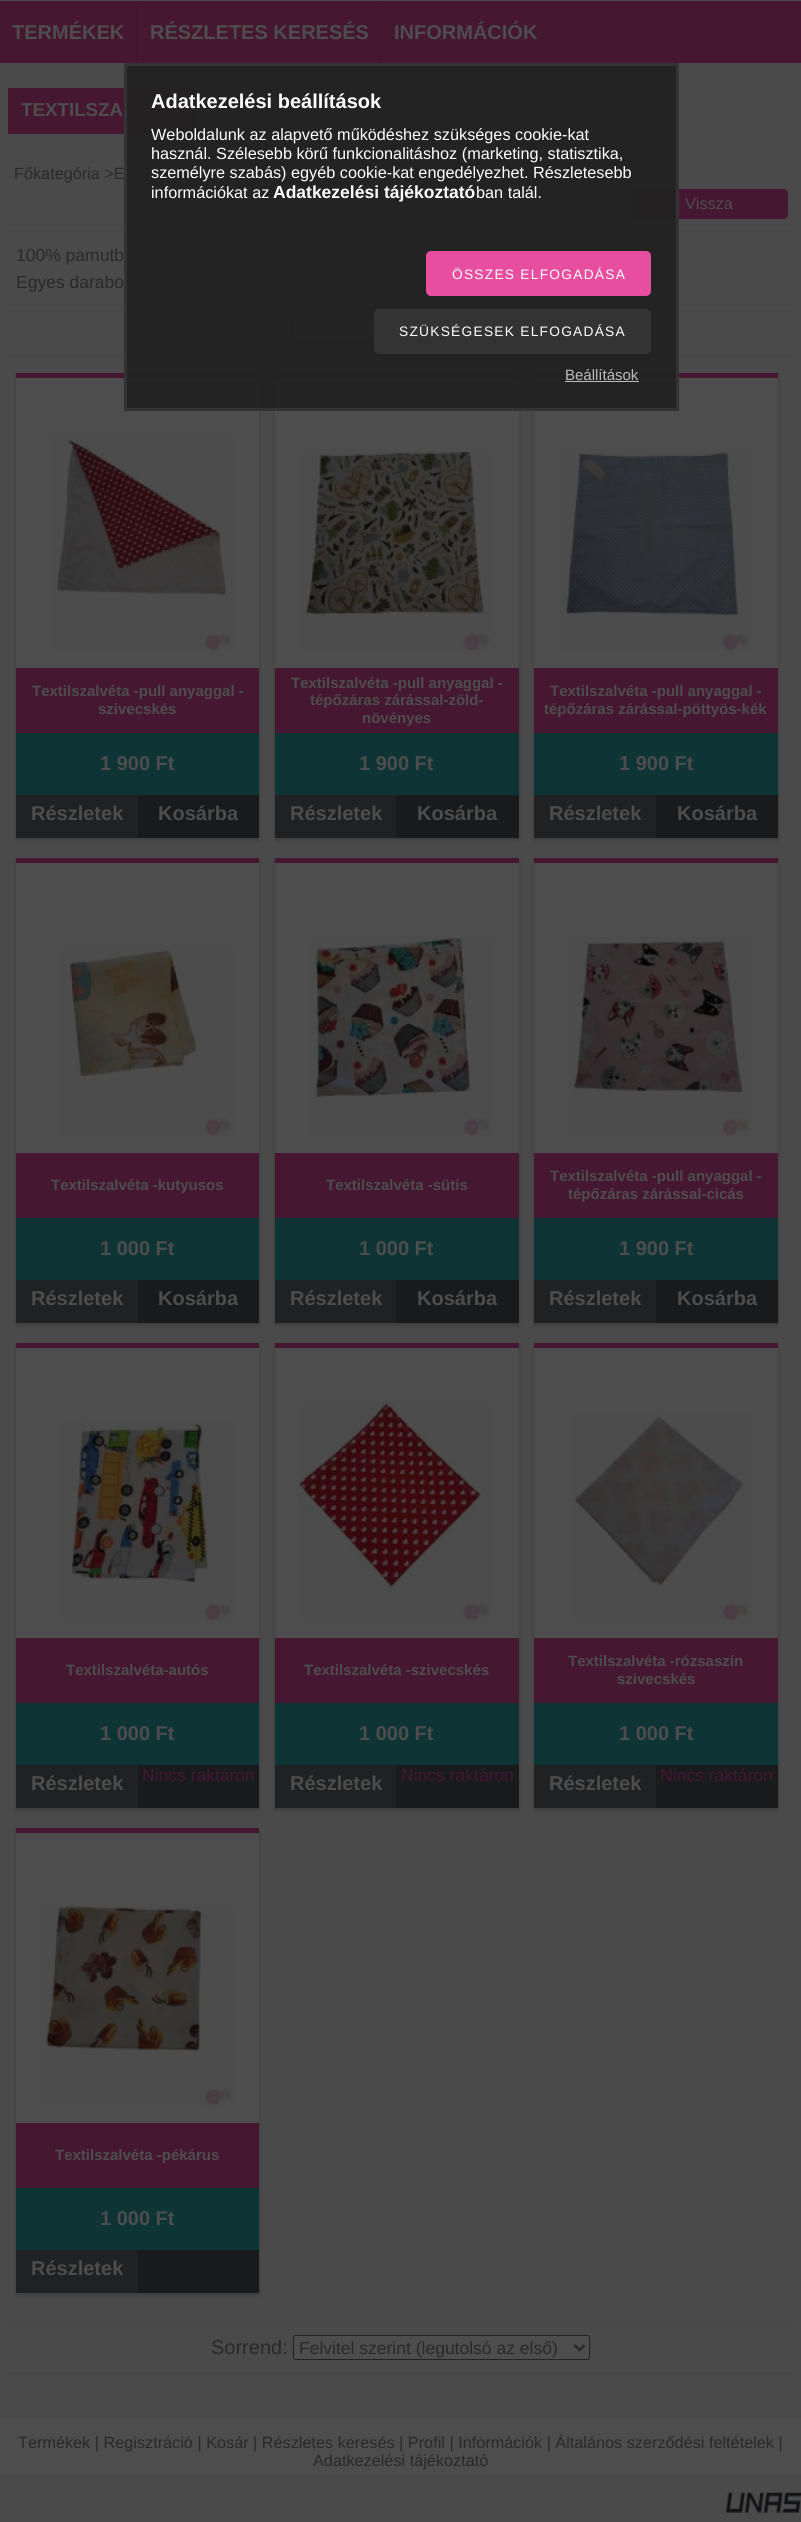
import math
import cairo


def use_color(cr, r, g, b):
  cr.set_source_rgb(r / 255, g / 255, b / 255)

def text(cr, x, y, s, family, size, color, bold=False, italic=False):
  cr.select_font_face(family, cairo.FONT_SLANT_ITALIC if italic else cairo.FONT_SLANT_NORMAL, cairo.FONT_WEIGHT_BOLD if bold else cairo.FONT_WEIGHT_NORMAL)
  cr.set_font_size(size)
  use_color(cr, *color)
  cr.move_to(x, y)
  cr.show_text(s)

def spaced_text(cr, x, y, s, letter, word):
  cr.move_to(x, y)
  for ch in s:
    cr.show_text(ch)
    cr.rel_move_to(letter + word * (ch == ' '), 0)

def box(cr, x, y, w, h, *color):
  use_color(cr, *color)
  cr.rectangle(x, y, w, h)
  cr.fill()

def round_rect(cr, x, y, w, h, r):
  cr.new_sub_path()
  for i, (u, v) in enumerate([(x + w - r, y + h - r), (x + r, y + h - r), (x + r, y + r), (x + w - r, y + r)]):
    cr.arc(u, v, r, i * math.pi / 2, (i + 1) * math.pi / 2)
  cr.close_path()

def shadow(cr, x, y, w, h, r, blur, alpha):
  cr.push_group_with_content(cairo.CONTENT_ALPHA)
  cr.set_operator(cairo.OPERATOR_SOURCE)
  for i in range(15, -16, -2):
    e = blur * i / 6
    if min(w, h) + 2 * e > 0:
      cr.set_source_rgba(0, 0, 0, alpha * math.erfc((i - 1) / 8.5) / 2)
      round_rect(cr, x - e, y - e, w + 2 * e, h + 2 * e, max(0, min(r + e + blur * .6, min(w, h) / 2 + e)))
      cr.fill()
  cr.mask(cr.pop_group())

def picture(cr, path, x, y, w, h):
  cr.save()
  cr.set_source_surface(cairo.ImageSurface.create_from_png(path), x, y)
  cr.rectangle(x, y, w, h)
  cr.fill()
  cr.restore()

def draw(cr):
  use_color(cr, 74, 74, 74)
  cr.paint()
  box(cr, 0, 1, 801, 62, 69, 23, 48)
  cr.set_source_rgba(0, 0, 0, 0.07)
  cr.rectangle(136, 1, 1, 62)
  cr.fill()
  cr.rectangle(380, 1, 1, 62)
  cr.fill()
  cr.rectangle(549, 1, 1, 62)
  cr.fill()
  box(cr, 8, 88, 188, 46, 69, 23, 48)
  round_rect(cr, 631, 189, 157, 30, 5)
  cr.fill()
  box(cr, 8, 231, 786, 1, 71, 70, 70)
  box(cr, 8, 304, 786, 1, 71, 70, 70)
  use_color(cr, 77, 77, 77)
  round_rect(cr, 293.5, 318.5, 296, 24, 2)
  cr.fill_preserve()
  use_color(cr, 35, 35, 35)
  cr.set_line_width(1)
  cr.stroke()
  box(cr, 8, 355, 786, 1, 71, 70, 70)
  use_color(cr, 0, 0, 0)
  shadow(cr, 16, 375, 243, 465, 0, 2, 0.2)
  box(cr, 16, 373, 243, 5, 69, 23, 48)
  box(cr, 16, 378, 243, 290, 77, 77, 77)
  picture(cr, "img_01.png", 51, 433, 184, 218)
  box(cr, 16, 668, 243, 65, 69, 23, 48)
  box(cr, 16, 733, 243, 62, 14, 52, 54)
  box(cr, 16, 795, 122, 43, 32, 33, 34)
  box(cr, 138, 795, 121, 43, 24, 26, 28)
  use_color(cr, 0, 0, 0)
  shadow(cr, 275, 375, 244, 465, 0, 2, 0.2)
  box(cr, 275, 373, 244, 5, 69, 23, 48)
  box(cr, 275, 378, 244, 290, 77, 77, 77)
  picture(cr, "img_02.png", 299, 451, 194, 200)
  box(cr, 275, 668, 244, 65, 69, 23, 48)
  box(cr, 275, 733, 244, 62, 14, 52, 54)
  box(cr, 275, 795, 121, 43, 32, 33, 34)
  box(cr, 396, 795, 123, 43, 24, 26, 28)
  use_color(cr, 0, 0, 0)
  shadow(cr, 534, 375, 244, 465, 0, 2, 0.2)
  box(cr, 534, 373, 244, 5, 69, 23, 48)
  box(cr, 534, 378, 244, 290, 77, 77, 77)
  picture(cr, "img_03.png", 559, 452, 193, 199)
  box(cr, 534, 668, 244, 65, 69, 23, 48)
  box(cr, 534, 733, 244, 62, 14, 52, 54)
  box(cr, 534, 795, 122, 43, 32, 33, 34)
  box(cr, 656, 795, 122, 43, 24, 26, 28)
  use_color(cr, 0, 0, 0)
  shadow(cr, 16, 860, 243, 465, 0, 2, 0.2)
  box(cr, 16, 858, 243, 5, 69, 23, 48)
  box(cr, 16, 863, 243, 290, 77, 77, 77)
  picture(cr, "img_04.png", 59, 947, 176, 189)
  box(cr, 16, 1153, 243, 65, 69, 23, 48)
  box(cr, 16, 1218, 243, 62, 14, 52, 54)
  box(cr, 16, 1280, 122, 43, 32, 33, 34)
  box(cr, 138, 1280, 121, 43, 24, 26, 28)
  use_color(cr, 0, 0, 0)
  shadow(cr, 275, 860, 244, 465, 0, 2, 0.2)
  box(cr, 275, 858, 244, 5, 69, 23, 48)
  box(cr, 275, 863, 244, 290, 77, 77, 77)
  picture(cr, "img_05.png", 309, 937, 184, 199)
  box(cr, 275, 1153, 244, 65, 69, 23, 48)
  box(cr, 275, 1218, 244, 62, 14, 52, 54)
  box(cr, 275, 1280, 121, 43, 32, 33, 34)
  box(cr, 396, 1280, 123, 43, 24, 26, 28)
  use_color(cr, 0, 0, 0)
  shadow(cr, 534, 860, 244, 465, 0, 2, 0.2)
  box(cr, 534, 858, 244, 5, 69, 23, 48)
  box(cr, 534, 863, 244, 290, 77, 77, 77)
  picture(cr, "img_06.png", 569, 937, 183, 199)
  box(cr, 534, 1153, 244, 65, 69, 23, 48)
  box(cr, 534, 1218, 244, 62, 14, 52, 54)
  box(cr, 534, 1280, 122, 43, 32, 33, 34)
  box(cr, 656, 1280, 122, 43, 24, 26, 28)
  use_color(cr, 0, 0, 0)
  shadow(cr, 16, 1345, 243, 465, 0, 2, 0.2)
  box(cr, 16, 1343, 243, 5, 69, 23, 48)
  box(cr, 16, 1348, 243, 290, 77, 77, 77)
  picture(cr, "img_07.png", 60, 1421, 175, 200)
  box(cr, 16, 1638, 243, 65, 69, 23, 48)
  box(cr, 16, 1703, 243, 62, 14, 52, 54)
  box(cr, 16, 1765, 122, 43, 32, 33, 34)
  box(cr, 138, 1765, 121, 43, 24, 26, 28)
  use_color(cr, 0, 0, 0)
  shadow(cr, 275, 1345, 244, 465, 0, 2, 0.2)
  box(cr, 275, 1343, 244, 5, 69, 23, 48)
  box(cr, 275, 1348, 244, 290, 77, 77, 77)
  picture(cr, "img_08.png", 298, 1402, 195, 219)
  box(cr, 275, 1638, 244, 65, 69, 23, 48)
  box(cr, 275, 1703, 244, 62, 14, 52, 54)
  box(cr, 275, 1765, 121, 43, 32, 33, 34)
  box(cr, 396, 1765, 123, 43, 24, 26, 28)
  use_color(cr, 0, 0, 0)
  shadow(cr, 534, 1345, 244, 465, 0, 2, 0.2)
  box(cr, 534, 1343, 244, 5, 69, 23, 48)
  box(cr, 534, 1348, 244, 290, 77, 77, 77)
  picture(cr, "img_09.png", 571, 1413, 181, 208)
  box(cr, 534, 1638, 244, 65, 69, 23, 48)
  box(cr, 534, 1703, 244, 62, 14, 52, 54)
  box(cr, 534, 1765, 122, 43, 32, 33, 34)
  box(cr, 656, 1765, 122, 43, 24, 26, 28)
  use_color(cr, 0, 0, 0)
  shadow(cr, 16, 1830, 243, 465, 0, 2, 0.2)
  box(cr, 16, 1828, 243, 5, 69, 23, 48)
  box(cr, 16, 1833, 243, 290, 77, 77, 77)
  picture(cr, "img_10.png", 40, 1905, 195, 201)
  box(cr, 16, 2123, 243, 65, 69, 23, 48)
  box(cr, 16, 2188, 243, 62, 14, 52, 54)
  box(cr, 16, 2250, 122, 43, 32, 33, 34)
  box(cr, 138, 2250, 121, 43, 24, 26, 28)
  box(cr, 8, 2321, 786, 1, 71, 70, 70)
  use_color(cr, 77, 77, 77)
  round_rect(cr, 293.5, 2335.5, 296, 24, 2)
  cr.fill_preserve()
  use_color(cr, 35, 35, 35)
  cr.stroke()
  cr.new_path()
  cr.move_to(574.5, 2345)
  cr.line_to(579.5, 2350)
  cr.line_to(584.5, 2345)
  use_color(cr, 42, 41, 41)
  cr.set_line_width(2.5)
  cr.stroke()
  box(cr, 8, 2373, 786, 1, 71, 70, 70)
  box(cr, 0, 2418, 801, 56, 77, 77, 77)
  picture(cr, "img_11.png", 726, 2492, 75, 21)
  text(cr, 12, 39, "TERMÉKEK", "Liberation Sans", 20, (77, 77, 77), bold=True)
  text(cr, 150, 39, "RÉSZLETES KERESÉS", "Liberation Sans", 20, (77, 77, 77), bold=True)
  text(cr, 394, 39, "INFORMÁCIÓK", "Liberation Sans", 20, (77, 77, 77), bold=True)
  text(cr, 21, 116, "TEXTILSZA", "Liberation Sans", 18.75, (77, 77, 77), bold=True)
  text(cr, 14, 179, "Főkategória >E", "Liberation Sans", 16.25, (42, 41, 41))
  text(cr, 685, 209, "Vissza", "Liberation Sans", 16.25, (77, 77, 77))
  text(cr, 16, 261, "100% pamutb", "Liberation Sans", 17.5, (42, 41, 41))
  text(cr, 16, 288, "Egyes darabo", "Liberation Sans", 17.5, (42, 41, 41))
  text(cr, 32, 696, "Textilszalvéta -pull anyaggal -", "Liberation Sans", 15, (77, 77, 77), bold=True)
  text(cr, 98, 714, "szivecskés", "Liberation Sans", 15, (77, 77, 77), bold=True)
  text(cr, 100, 770, "1 900 Ft", "Liberation Sans", 20, (77, 77, 77), bold=True)
  text(cr, 31, 820, "Részletek", "Liberation Sans", 20, (77, 77, 77), bold=True)
  text(cr, 158, 820, "Kosárba", "Liberation Sans", 20, (77, 77, 77), bold=True)
  text(cr, 291, 688, "Textilszalvéta -pull anyaggal -", "Liberation Sans", 15, (77, 77, 77), bold=True)
  text(cr, 310, 705, "tépőzáras zárással-zöld-", "Liberation Sans", 15, (77, 77, 77), bold=True)
  text(cr, 362, 723, "növényes", "Liberation Sans", 15, (77, 77, 77), bold=True)
  text(cr, 359, 770, "1 900 Ft", "Liberation Sans", 20, (77, 77, 77), bold=True)
  text(cr, 290, 820, "Részletek", "Liberation Sans", 20, (77, 77, 77), bold=True)
  text(cr, 417, 820, "Kosárba", "Liberation Sans", 20, (77, 77, 77), bold=True)
  text(cr, 550, 696, "Textilszalvéta -pull anyaggal -", "Liberation Sans", 15, (77, 77, 77), bold=True)
  text(cr, 544, 714, "tépőzáras zárással-pöttyös-kék", "Liberation Sans", 15, (77, 77, 77), bold=True)
  text(cr, 619, 770, "1 900 Ft", "Liberation Sans", 20, (77, 77, 77), bold=True)
  text(cr, 549, 820, "Részletek", "Liberation Sans", 20, (77, 77, 77), bold=True)
  text(cr, 677, 820, "Kosárba", "Liberation Sans", 20, (77, 77, 77), bold=True)
  text(cr, 51, 1190, "Textilszalvéta -kutyusos", "Liberation Sans", 15, (77, 77, 77), bold=True)
  text(cr, 100, 1255, "1 000 Ft", "Liberation Sans", 20, (77, 77, 77), bold=True)
  text(cr, 31, 1305, "Részletek", "Liberation Sans", 20, (77, 77, 77), bold=True)
  text(cr, 158, 1305, "Kosárba", "Liberation Sans", 20, (77, 77, 77), bold=True)
  text(cr, 326, 1190, "Textilszalvéta -sütis", "Liberation Sans", 15, (77, 77, 77), bold=True)
  text(cr, 359, 1255, "1 000 Ft", "Liberation Sans", 20, (77, 77, 77), bold=True)
  text(cr, 290, 1305, "Részletek", "Liberation Sans", 20, (77, 77, 77), bold=True)
  text(cr, 417, 1305, "Kosárba", "Liberation Sans", 20, (77, 77, 77), bold=True)
  text(cr, 550, 1181, "Textilszalvéta -pull anyaggal -", "Liberation Sans", 15, (77, 77, 77), bold=True)
  text(cr, 568, 1199, "tépőzáras zárással-cicás", "Liberation Sans", 15, (77, 77, 77), bold=True)
  text(cr, 619, 1255, "1 900 Ft", "Liberation Sans", 20, (77, 77, 77), bold=True)
  text(cr, 549, 1305, "Részletek", "Liberation Sans", 20, (77, 77, 77), bold=True)
  text(cr, 677, 1305, "Kosárba", "Liberation Sans", 20, (77, 77, 77), bold=True)
  text(cr, 66, 1675, "Textilszalvéta-autós", "Liberation Sans", 15, (77, 77, 77), bold=True)
  text(cr, 100, 1740, "1 000 Ft", "Liberation Sans", 20, (77, 77, 77), bold=True)
  text(cr, 31, 1790, "Részletek", "Liberation Sans", 20, (77, 77, 77), bold=True)
  text(cr, 142, 1781, "Nincs raktáron", "Liberation Sans", 17.5, (69, 23, 48))
  text(cr, 304, 1675, "Textilszalvéta -szivecskés", "Liberation Sans", 15, (77, 77, 77), bold=True)
  text(cr, 359, 1740, "1 000 Ft", "Liberation Sans", 20, (77, 77, 77), bold=True)
  text(cr, 290, 1790, "Részletek", "Liberation Sans", 20, (77, 77, 77), bold=True)
  text(cr, 401, 1781, "Nincs raktáron", "Liberation Sans", 17.5, (69, 23, 48))
  text(cr, 568, 1666, "Textilszalvéta -rózsaszín", "Liberation Sans", 15, (77, 77, 77), bold=True)
  text(cr, 617, 1684, "szivecskés", "Liberation Sans", 15, (77, 77, 77), bold=True)
  text(cr, 619, 1740, "1 000 Ft", "Liberation Sans", 20, (77, 77, 77), bold=True)
  text(cr, 549, 1790, "Részletek", "Liberation Sans", 20, (77, 77, 77), bold=True)
  text(cr, 660, 1781, "Nincs raktáron", "Liberation Sans", 17.5, (69, 23, 48))
  text(cr, 55, 2160, "Textilszalvéta -pékárus", "Liberation Sans", 15, (77, 77, 77), bold=True)
  text(cr, 100, 2225, "1 000 Ft", "Liberation Sans", 20, (77, 77, 77), bold=True)
  text(cr, 31, 2275, "Részletek", "Liberation Sans", 20, (77, 77, 77), bold=True)
  text(cr, 211, 2354, "Sorrend:", "Liberation Sans", 20, (42, 41, 41))
  text(cr, 299, 2354, "Felvitel szerint (legutolsó az első)", "Liberation Sans", 17.5, (42, 41, 41))
  text(cr, 18, 2448, "Termékek | Regisztráció | Kosár | Részletes keresés | Profil | Információk | Általános szerződési feltételek |", "Liberation Sans", 16.25, (42, 41, 41))
  text(cr, 313, 2466, "Adatkezelési tájékoztató", "Liberation Sans", 16.25, (42, 41, 41))
  cr.set_source_rgba(0.133, 0.133, 0.133, 0.95)
  cr.rectangle(125.5, 64.5, 552, 345)
  cr.fill_preserve()
  use_color(cr, 51, 51, 51)
  cr.set_line_width(3)
  cr.stroke()
  text(cr, 151, 108, "Adatkezelési beállítások", "Liberation Sans", 20, (255, 255, 255), bold=True)
  text(cr, 151, 140, "Weboldalunk az alapvető működéshez szükséges cookie-kat", "Liberation Sans", 16.25, (255, 255, 255))
  text(cr, 151, 159, "használ. Szélesebb körű funkcionalitáshoz (marketing, statisztika,", "Liberation Sans", 16.25, (255, 255, 255))
  text(cr, 151, 178, "személyre szabás) egyéb cookie-kat engedélyezhet. Részletesebb", "Liberation Sans", 16.25, (255, 255, 255))
  text(cr, 151, 198, "információkat az", "Liberation Sans", 16.25, (255, 255, 255))
  text(cr, 273, 198, "Adatkezelési tájékoztató", "Liberation Sans", 17.5, (255, 255, 255), bold=True)
  text(cr, 476, 198, "ban talál.", "Liberation Sans", 16.25, (255, 255, 255))
  use_color(cr, 231, 78, 160)
  round_rect(cr, 426, 251, 225, 45, 5)
  cr.fill()
  cr.set_font_size(13.75)
  use_color(cr, 255, 255, 255)
  spaced_text(cr, 452, 279, "ÖSSZES ELFOGADÁSA", 1.25, 0)
  use_color(cr, 51, 51, 51)
  round_rect(cr, 374, 309, 277, 45, 5)
  cr.fill()
  use_color(cr, 255, 255, 255)
  spaced_text(cr, 399, 336, "SZÜKSÉGESEK ELFOGADÁSA", 1.25, 0)
  text(cr, 565, 380, "Beállítások", "Liberation Sans", 15, (189, 189, 189))
  box(cr, 565, 381, 74, 1, 189, 189, 189)


surface = cairo.ImageSurface(cairo.FORMAT_RGB24, 801, 2522)
cr = cairo.Context(surface)
options = cairo.FontOptions()
options.set_hint_metrics(cairo.HINT_METRICS_OFF)
options.set_hint_style(cairo.HINT_STYLE_NONE)
cr.set_font_options(options)
cr.set_miter_limit(4)
draw(cr)
surface.write_to_png("out.png")
